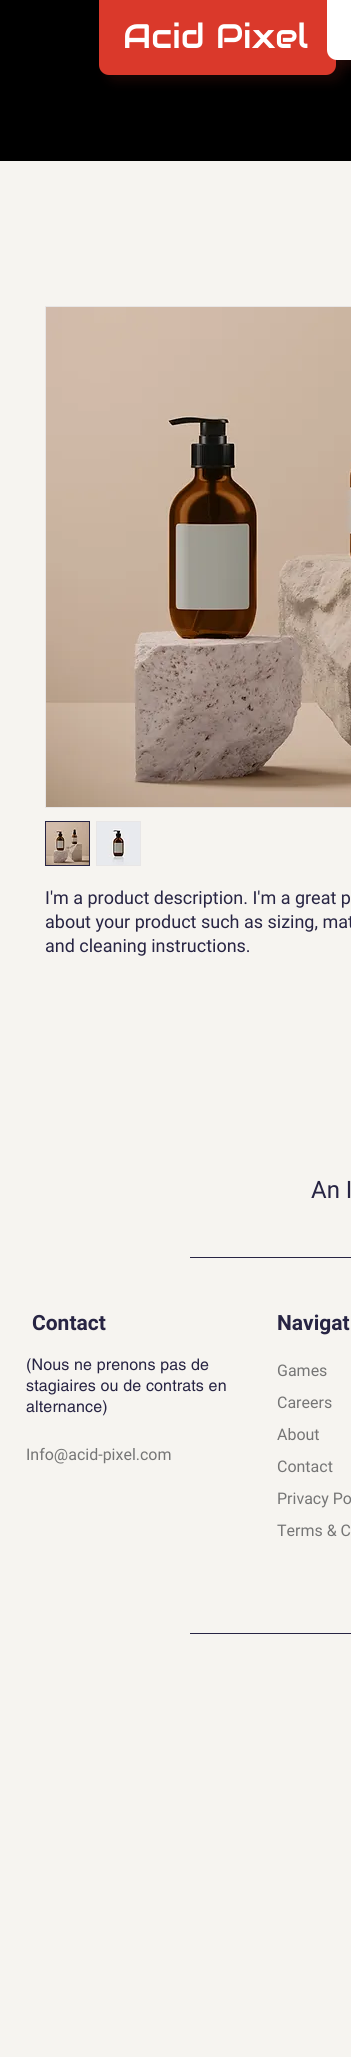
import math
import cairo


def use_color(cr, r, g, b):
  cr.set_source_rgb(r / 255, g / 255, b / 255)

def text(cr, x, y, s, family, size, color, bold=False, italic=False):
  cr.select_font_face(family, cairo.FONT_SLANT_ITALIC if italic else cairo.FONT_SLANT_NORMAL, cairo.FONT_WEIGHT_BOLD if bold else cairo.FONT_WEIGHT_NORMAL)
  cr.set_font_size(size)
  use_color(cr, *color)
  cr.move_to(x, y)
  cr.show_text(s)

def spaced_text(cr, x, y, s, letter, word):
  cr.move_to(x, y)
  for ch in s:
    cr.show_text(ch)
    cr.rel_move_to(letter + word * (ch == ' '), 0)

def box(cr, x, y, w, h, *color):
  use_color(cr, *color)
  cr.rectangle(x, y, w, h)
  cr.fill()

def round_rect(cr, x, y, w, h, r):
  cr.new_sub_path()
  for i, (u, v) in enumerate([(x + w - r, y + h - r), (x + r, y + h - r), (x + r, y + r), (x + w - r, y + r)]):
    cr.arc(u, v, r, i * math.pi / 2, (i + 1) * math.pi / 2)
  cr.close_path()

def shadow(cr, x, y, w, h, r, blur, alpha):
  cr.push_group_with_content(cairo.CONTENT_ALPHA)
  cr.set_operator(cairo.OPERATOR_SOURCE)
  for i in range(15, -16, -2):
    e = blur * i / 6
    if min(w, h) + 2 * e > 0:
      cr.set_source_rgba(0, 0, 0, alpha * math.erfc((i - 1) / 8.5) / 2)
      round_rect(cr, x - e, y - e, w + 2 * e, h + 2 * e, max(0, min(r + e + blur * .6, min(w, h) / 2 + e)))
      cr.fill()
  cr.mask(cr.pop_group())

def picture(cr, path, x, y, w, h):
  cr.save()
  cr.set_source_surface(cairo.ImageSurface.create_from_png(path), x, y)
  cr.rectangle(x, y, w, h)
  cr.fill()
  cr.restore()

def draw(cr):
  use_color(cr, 246, 244, 240)
  cr.paint()
  box(cr, 0, 0, 351, 161, 0, 0, 0)
  use_color(cr, 218, 57, 43)
  shadow(cr, 106, 7, 237, 75, 10, 5, 0.1)
  use_color(cr, 218, 57, 43)
  cr.new_path()
  cr.move_to(99, 0)
  cr.line_to(336, 0)
  cr.line_to(336, 65)
  cr.curve_to(336, 70.5, 331.5, 75, 326, 75)
  cr.line_to(109, 75)
  cr.curve_to(103.5, 75, 99, 70.5, 99, 65)
  cr.close_path()
  cr.fill()
  use_color(cr, 218, 57, 43)
  shadow(cr, 334, 7, 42, 60, 10, 5, 0.1)
  use_color(cr, 255, 255, 255)
  cr.new_path()
  cr.move_to(327, 0)
  cr.line_to(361, 0)
  cr.line_to(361, 50)
  cr.curve_to(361, 55.5, 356.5, 60, 351, 60)
  cr.line_to(337, 60)
  cr.curve_to(331.5, 60, 327, 55.5, 327, 50)
  cr.close_path()
  cr.fill()
  cr.rectangle(45.5, 306.5, 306, 501)
  use_color(cr, 232, 230, 230)
  cr.set_line_width(1)
  cr.stroke()
  picture(cr, "img_01.png", 46, 307, 305, 500)
  cr.rectangle(45.5, 821.5, 44, 44)
  use_color(cr, 39, 36, 67)
  cr.stroke()
  picture(cr, "img_02.png", 46, 822, 43, 43)
  box(cr, 96, 821, 45, 45, 232, 230, 230)
  picture(cr, "img_03.png", 97, 822, 43, 43)
  box(cr, 190, 1257, 161, 1, 39, 36, 67)
  box(cr, 190, 1633, 161, 1, 39, 36, 67)
  text(cr, 123, 48, "Acid Pixel", "Audiowide", 34, (255, 255, 255))
  text(cr, 45, 904, "I'm a product description. I'm a great p", "Roboto", 18, (39, 36, 67))
  text(cr, 45, 928, "about your product such as sizing, mat", "Roboto", 18, (39, 36, 67))
  text(cr, 45, 952, "and cleaning instructions.", "Roboto", 18, (39, 36, 67))
  text(cr, 311, 1198, "An I", "Roboto", 24, (39, 36, 67))
  text(cr, 32, 1330, "Contact", "Roboto", 21, (39, 36, 67), bold=True)
  cr.select_font_face("helvetica")
  cr.set_font_size(16)
  spaced_text(cr, 26, 1370, "(Nous ne prenons pas de", 0.15, 0)
  spaced_text(cr, 26, 1391, "stagiaires ou de contrats en", 0.15, 0)
  spaced_text(cr, 26, 1412, "alternance)", 0.15, 0)
  text(cr, 26, 1460, "Info@acid-pixel.com", "Roboto", 16, (117, 117, 117))
  text(cr, 277, 1330, "Navigat", "Roboto", 21, (39, 36, 67), bold=True)
  text(cr, 277, 1376, "Games", "Roboto", 16, (117, 117, 117))
  text(cr, 277, 1408, "Careers", "Roboto", 16, (117, 117, 117))
  text(cr, 277, 1440, "About", "Roboto", 16, (117, 117, 117))
  text(cr, 277, 1472, "Contact", "Roboto", 16, (117, 117, 117))
  text(cr, 277, 1504, "Privacy Po", "Roboto", 16, (117, 117, 117))
  text(cr, 277, 1536, "Terms & C", "Roboto", 16, (117, 117, 117))


surface = cairo.ImageSurface(cairo.FORMAT_RGB24, 351, 2057)
cr = cairo.Context(surface)
options = cairo.FontOptions()
options.set_hint_metrics(cairo.HINT_METRICS_OFF)
options.set_hint_style(cairo.HINT_STYLE_NONE)
cr.set_font_options(options)
cr.set_miter_limit(4)
draw(cr)
surface.write_to_png("out.png")
